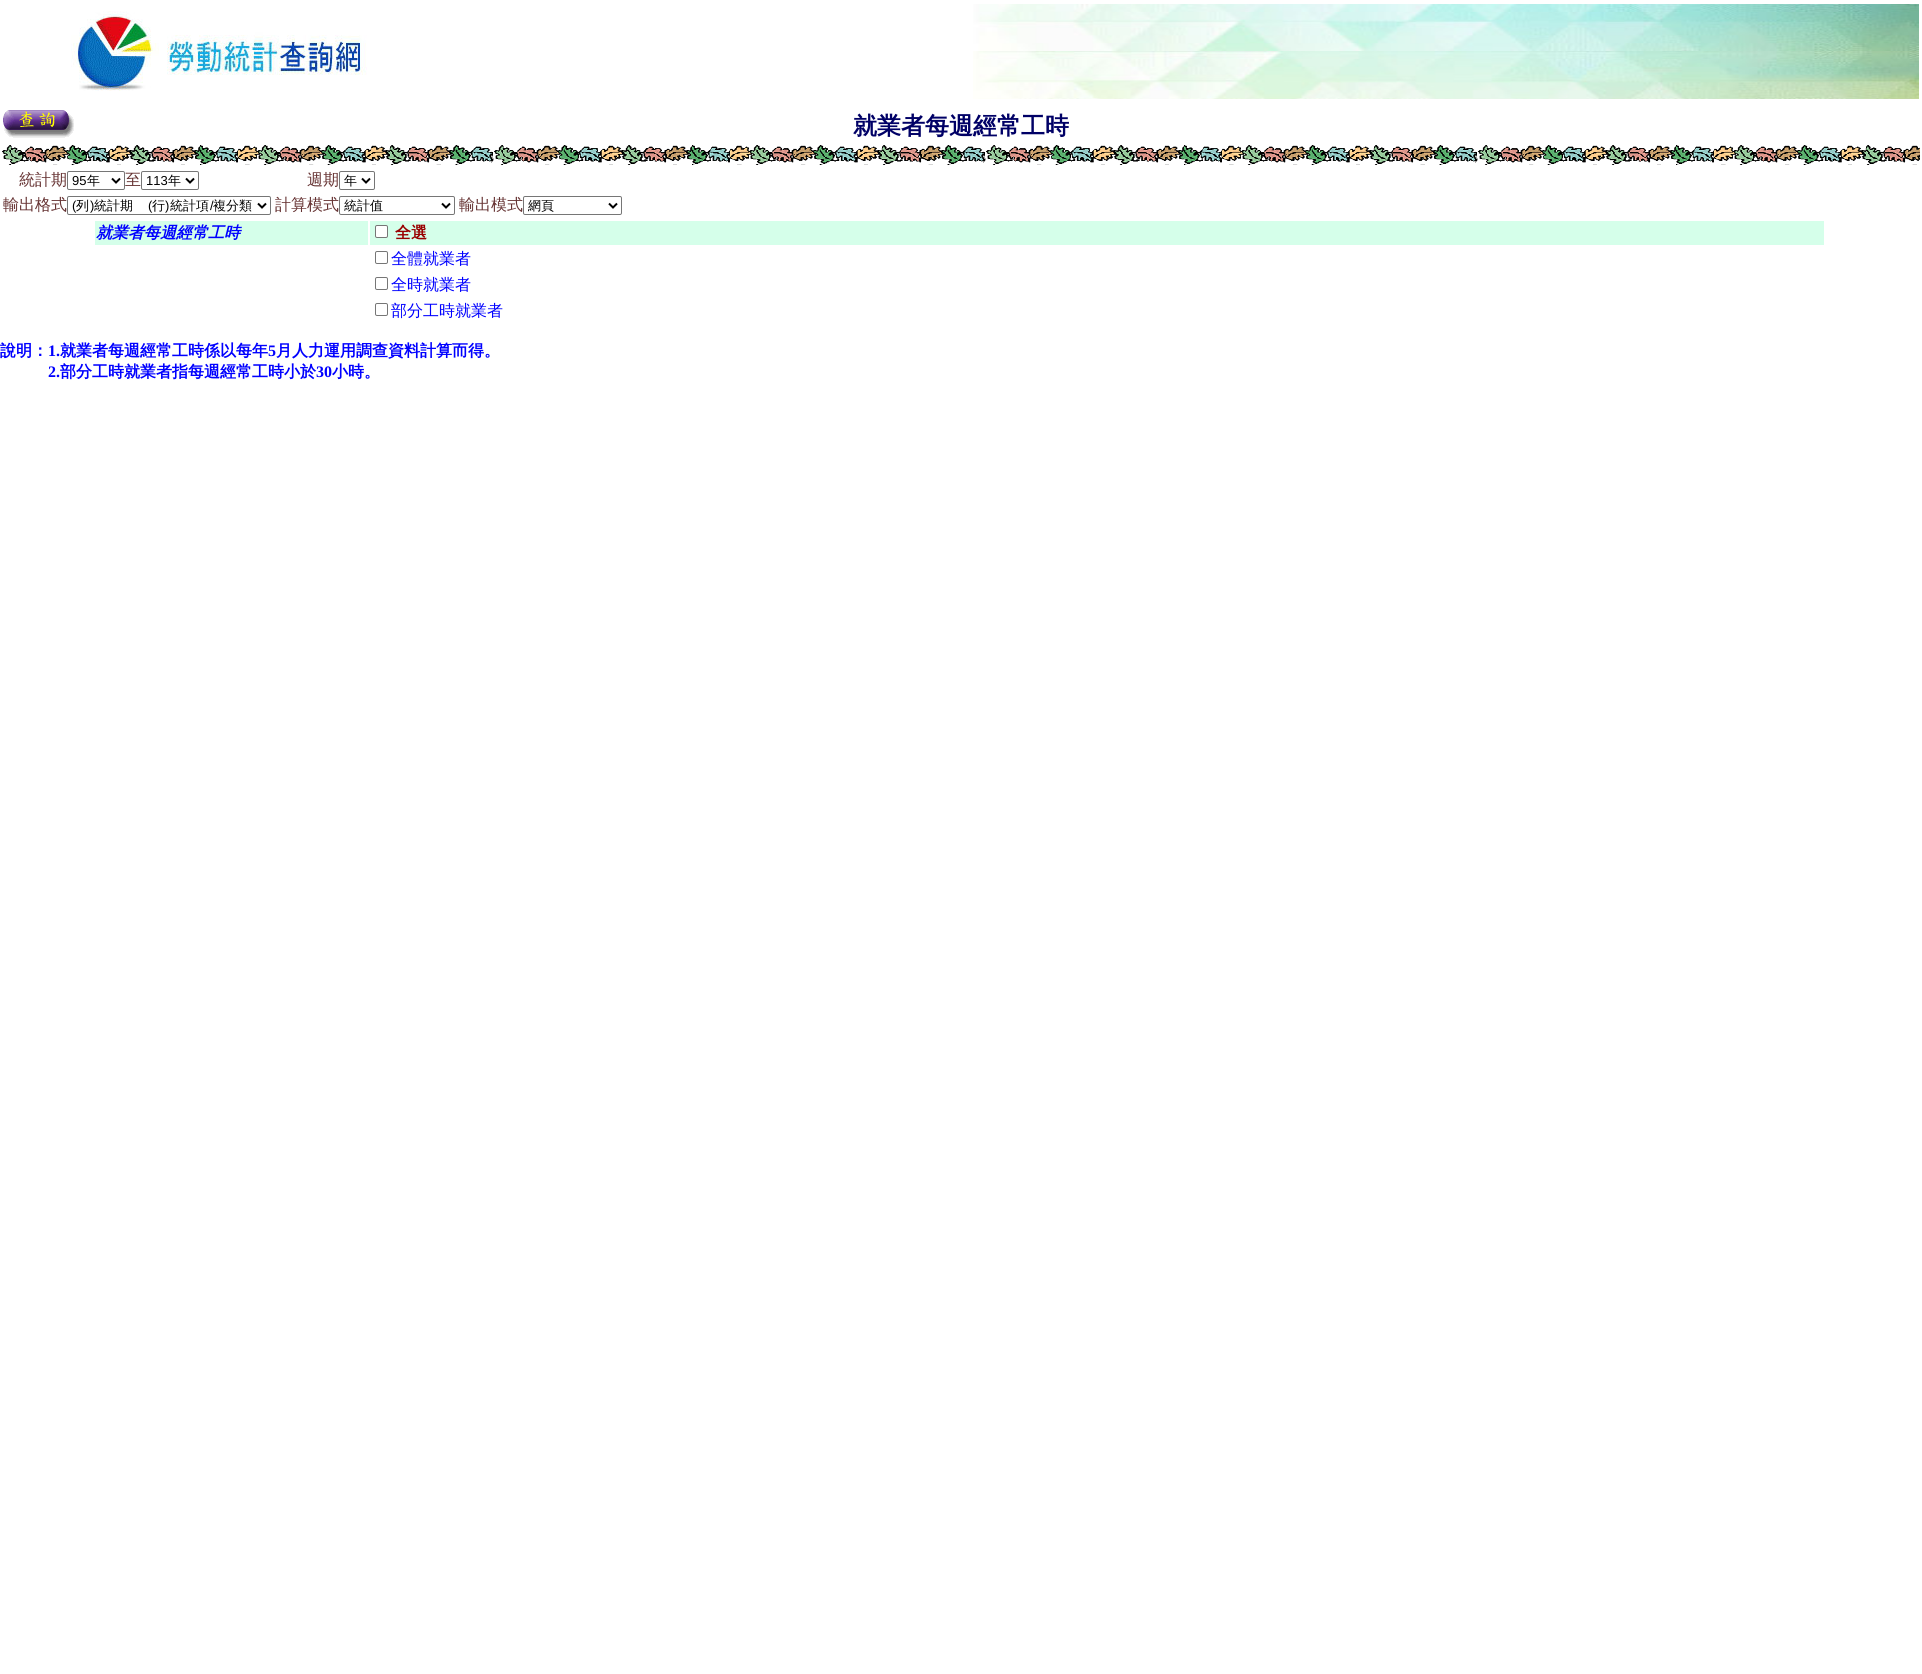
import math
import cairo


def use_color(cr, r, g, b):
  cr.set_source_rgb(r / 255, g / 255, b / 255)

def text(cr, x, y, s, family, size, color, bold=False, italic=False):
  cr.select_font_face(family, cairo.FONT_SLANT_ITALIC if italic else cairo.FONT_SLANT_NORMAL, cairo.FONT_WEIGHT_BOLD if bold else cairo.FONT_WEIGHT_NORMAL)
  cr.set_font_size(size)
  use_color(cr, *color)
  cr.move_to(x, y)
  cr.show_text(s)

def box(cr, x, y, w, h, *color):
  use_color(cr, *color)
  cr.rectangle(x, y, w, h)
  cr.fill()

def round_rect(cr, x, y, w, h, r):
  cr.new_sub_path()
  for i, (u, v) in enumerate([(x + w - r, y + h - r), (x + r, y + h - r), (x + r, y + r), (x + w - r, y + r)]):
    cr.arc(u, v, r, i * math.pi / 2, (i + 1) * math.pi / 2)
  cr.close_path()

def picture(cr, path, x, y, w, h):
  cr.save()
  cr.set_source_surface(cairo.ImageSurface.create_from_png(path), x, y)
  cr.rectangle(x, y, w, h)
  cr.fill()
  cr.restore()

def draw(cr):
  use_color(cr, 255, 255, 255)
  cr.paint()
  picture(cr, "img_01.png", 71, 11, 296, 80)
  picture(cr, "img_02.png", 973, 4, 946, 95)
  picture(cr, "img_03.png", 3, 110, 71, 28)
  picture(cr, "img_04.png", 2, 145, 1918, 20)
  round_rect(cr, 67.5, 171.5, 57, 18, 1.5)
  use_color(cr, 118, 118, 118)
  cr.set_line_width(1)
  cr.stroke()
  cr.new_path()
  cr.move_to(112, 178.5)
  cr.line_to(116, 182.5)
  cr.line_to(120, 178.5)
  use_color(cr, 0, 0, 0)
  cr.set_line_width(2)
  cr.stroke()
  round_rect(cr, 141.5, 171.5, 57, 18, 1.5)
  use_color(cr, 118, 118, 118)
  cr.set_line_width(1)
  cr.stroke()
  cr.new_path()
  cr.move_to(186, 178.5)
  cr.line_to(190, 182.5)
  cr.line_to(194, 178.5)
  use_color(cr, 0, 0, 0)
  cr.set_line_width(2)
  cr.stroke()
  round_rect(cr, 339.5, 171.5, 35, 18, 1.5)
  use_color(cr, 118, 118, 118)
  cr.set_line_width(1)
  cr.stroke()
  cr.new_path()
  cr.move_to(362, 178.5)
  cr.line_to(366, 182.5)
  cr.line_to(370, 178.5)
  use_color(cr, 0, 0, 0)
  cr.set_line_width(2)
  cr.stroke()
  round_rect(cr, 67.5, 196.5, 203, 18, 1.5)
  use_color(cr, 118, 118, 118)
  cr.set_line_width(1)
  cr.stroke()
  cr.new_path()
  cr.move_to(258, 203.5)
  cr.line_to(262, 207.5)
  cr.line_to(266, 203.5)
  use_color(cr, 0, 0, 0)
  cr.set_line_width(2)
  cr.stroke()
  round_rect(cr, 339.5, 196.5, 115, 18, 1.5)
  use_color(cr, 118, 118, 118)
  cr.set_line_width(1)
  cr.stroke()
  cr.new_path()
  cr.move_to(442, 203.5)
  cr.line_to(446, 207.5)
  cr.line_to(450, 203.5)
  use_color(cr, 0, 0, 0)
  cr.set_line_width(2)
  cr.stroke()
  round_rect(cr, 523.5, 196.5, 98, 18, 1.5)
  use_color(cr, 118, 118, 118)
  cr.set_line_width(1)
  cr.stroke()
  cr.new_path()
  cr.move_to(609, 203.5)
  cr.line_to(613, 207.5)
  cr.line_to(617, 203.5)
  use_color(cr, 0, 0, 0)
  cr.set_line_width(2)
  cr.stroke()
  box(cr, 95, 221, 273, 24, 213, 255, 234)
  box(cr, 370, 221, 1454, 24, 213, 255, 234)
  use_color(cr, 255, 255, 255)
  round_rect(cr, 375.5, 225.5, 12, 12, 1.5)
  cr.fill_preserve()
  use_color(cr, 118, 118, 118)
  cr.set_line_width(1)
  cr.stroke()
  round_rect(cr, 375.5, 251.5, 12, 12, 1.5)
  cr.stroke()
  round_rect(cr, 375.5, 277.5, 12, 12, 1.5)
  cr.stroke()
  round_rect(cr, 375.5, 303.5, 12, 12, 1.5)
  cr.stroke()
  text(cr, 853, 134, "就業者每週經常工時", "WenQuanYi Zen Hei", 24, (0, 0, 102), bold=True)
  text(cr, 19, 185, "統計期", "WenQuanYi Zen Hei Medium", 16, (102, 51, 51))
  text(cr, 72, 185, "95", "Liberation Sans", 13, (0, 0, 0))
  text(cr, 87, 185, "年", "WenQuanYi Zen Hei Medium", 13, (0, 0, 0))
  text(cr, 125, 185, "至", "WenQuanYi Zen Hei Medium", 16, (102, 51, 51))
  text(cr, 146, 185, "113", "Liberation Sans", 13, (0, 0, 0))
  text(cr, 168, 185, "年", "WenQuanYi Zen Hei Medium", 13, (0, 0, 0))
  text(cr, 307, 185, "週期", "WenQuanYi Zen Hei Medium", 16, (102, 51, 51))
  text(cr, 344, 185, "年", "WenQuanYi Zen Hei Medium", 13, (0, 0, 0))
  text(cr, 3, 210, "輸出格式", "WenQuanYi Zen Hei Medium", 16, (102, 51, 51))
  text(cr, 72, 210, "(", "Liberation Sans", 13, (0, 0, 0))
  text(cr, 76, 210, "列", "WenQuanYi Zen Hei Medium", 13, (0, 0, 0))
  text(cr, 90, 210, ")", "Liberation Sans", 13, (0, 0, 0))
  text(cr, 94, 210, "統計期", "WenQuanYi Zen Hei Medium", 13, (0, 0, 0))
  text(cr, 148, 210, "(", "Liberation Sans", 13, (0, 0, 0))
  text(cr, 152, 210, "行", "WenQuanYi Zen Hei Medium", 13, (0, 0, 0))
  text(cr, 165, 210, ")", "Liberation Sans", 13, (0, 0, 0))
  text(cr, 170, 210, "統計項", "WenQuanYi Zen Hei Medium", 13, (0, 0, 0))
  text(cr, 210, 210, "/", "Liberation Sans", 13, (0, 0, 0))
  text(cr, 213, 210, "複分類", "WenQuanYi Zen Hei Medium", 13, (0, 0, 0))
  text(cr, 275, 210, "計算模式", "WenQuanYi Zen Hei Medium", 16, (102, 51, 51))
  text(cr, 344, 210, "統計值", "WenQuanYi Zen Hei Medium", 13, (0, 0, 0))
  text(cr, 459, 210, "輸出模式", "WenQuanYi Zen Hei Medium", 16, (102, 51, 51))
  text(cr, 528, 210, "網頁", "WenQuanYi Zen Hei Medium", 13, (0, 0, 0))
  text(cr, 96, 238, "就業者每週經常工時", "WenQuanYi Zen Hei", 16, (0, 0, 255), bold=True, italic=True)
  text(cr, 395, 238, "全選", "WenQuanYi Zen Hei", 16, (153, 0, 0), bold=True)
  text(cr, 391, 264, "全體就業者", "WenQuanYi Zen Hei Medium", 16, (0, 0, 255))
  text(cr, 391, 290, "全時就業者", "WenQuanYi Zen Hei Medium", 16, (0, 0, 255))
  text(cr, 391, 316, "部分工時就業者", "WenQuanYi Zen Hei Medium", 16, (0, 0, 255))
  text(cr, 0, 356, "說明：", "WenQuanYi Zen Hei", 16, (0, 0, 255), bold=True)
  text(cr, 48, 356, "1.", "Liberation Serif", 16, (0, 0, 255), bold=True)
  text(cr, 60, 356, "就業者每週經常工時係以每年", "WenQuanYi Zen Hei", 16, (0, 0, 255), bold=True)
  text(cr, 268, 356, "5", "Liberation Serif", 16, (0, 0, 255), bold=True)
  text(cr, 276, 356, "月人力運用調查資料計算而得。", "WenQuanYi Zen Hei", 16, (0, 0, 255), bold=True)
  text(cr, 48, 377, "2.", "Liberation Serif", 16, (0, 0, 255), bold=True)
  text(cr, 60, 377, "部分工時就業者指每週經常工時小於", "WenQuanYi Zen Hei", 16, (0, 0, 255), bold=True)
  text(cr, 316, 377, "30", "Liberation Serif", 16, (0, 0, 255), bold=True)
  text(cr, 332, 377, "小時。", "WenQuanYi Zen Hei", 16, (0, 0, 255), bold=True)


surface = cairo.ImageSurface(cairo.FORMAT_RGB24, 1922, 1674)
cr = cairo.Context(surface)
options = cairo.FontOptions()
options.set_hint_metrics(cairo.HINT_METRICS_OFF)
options.set_hint_style(cairo.HINT_STYLE_NONE)
cr.set_font_options(options)
cr.set_miter_limit(4)
draw(cr)
surface.write_to_png("out.png")
